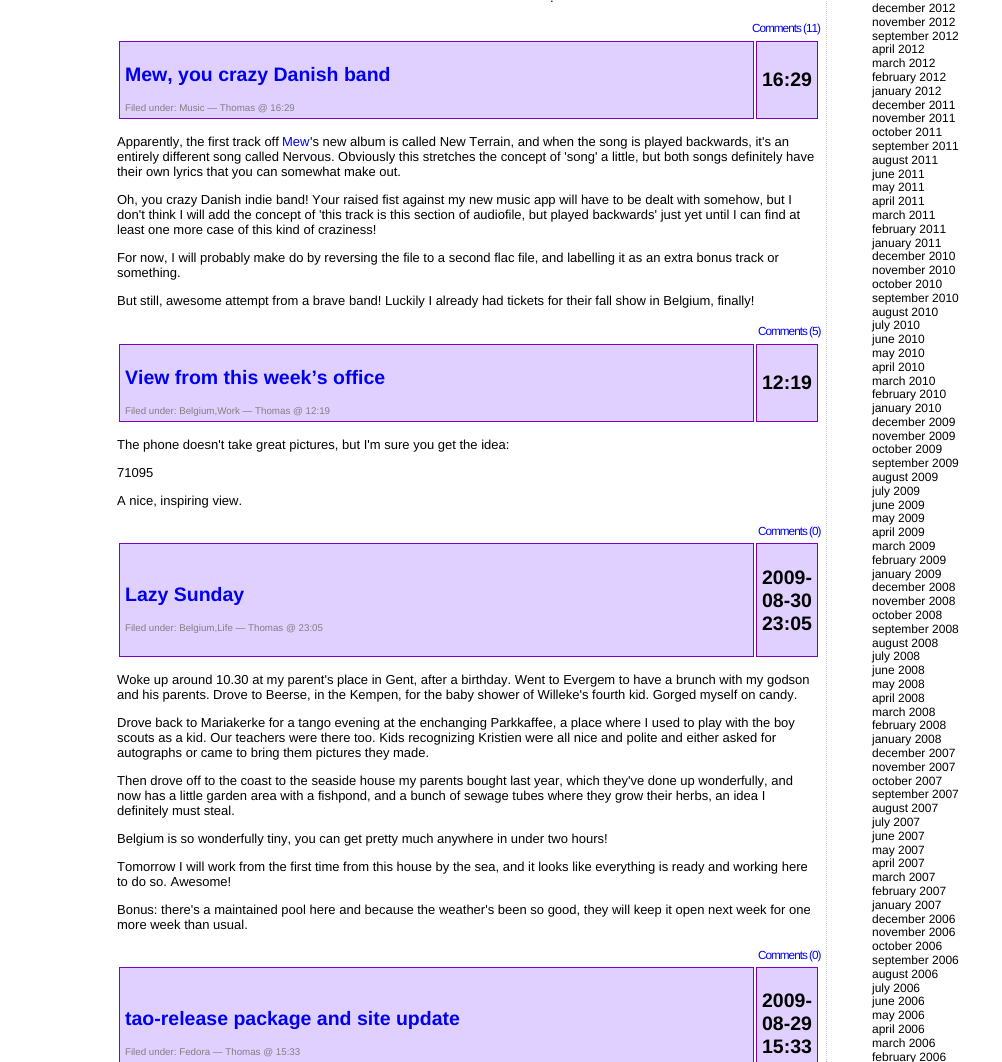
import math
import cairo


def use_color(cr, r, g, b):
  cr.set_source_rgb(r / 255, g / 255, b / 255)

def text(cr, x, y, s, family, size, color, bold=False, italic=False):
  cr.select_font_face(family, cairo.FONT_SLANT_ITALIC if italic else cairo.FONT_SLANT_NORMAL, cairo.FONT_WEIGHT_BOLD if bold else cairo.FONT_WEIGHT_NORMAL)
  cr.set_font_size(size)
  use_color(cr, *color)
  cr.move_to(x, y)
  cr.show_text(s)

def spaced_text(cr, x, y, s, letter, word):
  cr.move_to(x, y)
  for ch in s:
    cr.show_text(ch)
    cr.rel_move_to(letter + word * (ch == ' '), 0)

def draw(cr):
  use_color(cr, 255, 255, 255)
  cr.paint()
  use_color(cr, 224, 208, 255)
  cr.rectangle(119.5, 41.5, 634, 77)
  cr.fill_preserve()
  use_color(cr, 128, 0, 192)
  cr.set_line_width(1)
  cr.stroke()
  use_color(cr, 224, 208, 255)
  cr.rectangle(756.5, 41.5, 61, 77)
  cr.fill_preserve()
  use_color(cr, 128, 0, 192)
  cr.stroke()
  use_color(cr, 224, 208, 255)
  cr.rectangle(119.5, 344.5, 634, 77)
  cr.fill_preserve()
  use_color(cr, 128, 0, 192)
  cr.stroke()
  use_color(cr, 224, 208, 255)
  cr.rectangle(756.5, 344.5, 61, 77)
  cr.fill_preserve()
  use_color(cr, 128, 0, 192)
  cr.stroke()
  use_color(cr, 224, 208, 255)
  cr.rectangle(119.5, 543.5, 634, 113)
  cr.fill_preserve()
  use_color(cr, 128, 0, 192)
  cr.stroke()
  use_color(cr, 224, 208, 255)
  cr.rectangle(756.5, 543.5, 61, 113)
  cr.fill_preserve()
  use_color(cr, 128, 0, 192)
  cr.stroke()
  use_color(cr, 224, 208, 255)
  cr.rectangle(119.5, 967.5, 634, 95)
  cr.fill_preserve()
  use_color(cr, 128, 0, 192)
  cr.stroke()
  use_color(cr, 224, 208, 255)
  cr.rectangle(756.5, 967.5, 61, 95)
  cr.fill_preserve()
  use_color(cr, 128, 0, 192)
  cr.stroke()
  cr.new_path()
  cr.move_to(826.5, -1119)
  cr.line_to(826.5, 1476)
  use_color(cr, 204, 204, 204)
  cr.set_dash([1, 1])
  cr.stroke()
  text(cr, 550, 2, ".", "Liberation Sans", 13, (0, 0, 0))
  cr.set_font_size(11.75)
  use_color(cr, 0, 0, 238)
  spaced_text(cr, 752, 32, "Comments (11)", -1, 0)
  text(cr, 125, 81, "Mew, you crazy Danish band", "Liberation Sans", 19.5, (0, 0, 238), bold=True)
  text(cr, 125, 111, "Filed under: Music — Thomas @ 16:29", "Liberation Sans", 9.75, (128, 128, 128))
  text(cr, 762, 86, "16:29", "Liberation Sans", 19.5, (0, 0, 0), bold=True)
  text(cr, 117, 146, "Apparently, the first track off", "Liberation Sans", 13, (0, 0, 0))
  text(cr, 282, 146, "Mew", "Liberation Sans", 13, (0, 0, 238))
  text(cr, 310, 146, "'s new album is called New Terrain, and when the song is played backwards, it's an", "Liberation Sans", 13, (0, 0, 0))
  text(cr, 117, 161, "entirely different song called Nervous. Obviously this stretches the concept of 'song' a little, but both songs definitely have", "Liberation Sans", 13, (0, 0, 0))
  text(cr, 117, 176, "their own lyrics that you can somewhat make out.", "Liberation Sans", 13, (0, 0, 0))
  text(cr, 117, 204, "Oh, you crazy Danish indie band! Your raised fist against my new music app will have to be dealt with somehow, but I", "Liberation Sans", 13, (0, 0, 0))
  text(cr, 117, 219, "don't think I will add the concept of 'this track is this section of audiofile, but played backwards' just yet until I can find at", "Liberation Sans", 13, (0, 0, 0))
  text(cr, 117, 234, "least one more case of this kind of craziness!", "Liberation Sans", 13, (0, 0, 0))
  text(cr, 117, 262, "For now, I will probably make do by reversing the file to a second flac file, and labelling it as an extra bonus track or", "Liberation Sans", 13, (0, 0, 0))
  text(cr, 117, 277, "something.", "Liberation Sans", 13, (0, 0, 0))
  text(cr, 117, 305, "But still, awesome attempt from a brave band! Luckily I already had tickets for their fall show in Belgium, finally!", "Liberation Sans", 13, (0, 0, 0))
  cr.set_font_size(11.75)
  use_color(cr, 0, 0, 238)
  spaced_text(cr, 758, 335, "Comments (5)", -1, 0)
  text(cr, 125, 384, "View from this week’s office", "Liberation Sans", 19.5, (0, 0, 238), bold=True)
  text(cr, 125, 414, "Filed under: Belgium,Work — Thomas @ 12:19", "Liberation Sans", 9.75, (128, 128, 128))
  text(cr, 762, 389, "12:19", "Liberation Sans", 19.5, (0, 0, 0), bold=True)
  text(cr, 117, 449, "The phone doesn't take great pictures, but I'm sure you get the idea:", "Liberation Sans", 13, (0, 0, 0))
  text(cr, 117, 477, "71095", "Liberation Sans", 13, (0, 0, 0))
  text(cr, 117, 505, "A nice, inspiring view.", "Liberation Sans", 13, (0, 0, 0))
  cr.set_font_size(11.75)
  use_color(cr, 0, 0, 238)
  spaced_text(cr, 758, 535, "Comments (0)", -1, 0)
  text(cr, 125, 601, "Lazy Sunday", "Liberation Sans", 19.5, (0, 0, 238), bold=True)
  text(cr, 125, 631, "Filed under: Belgium,Life — Thomas @ 23:05", "Liberation Sans", 9.75, (128, 128, 128))
  text(cr, 762, 584, "2009-", "Liberation Sans", 19.5, (0, 0, 0), bold=True)
  text(cr, 762, 607, "08-30", "Liberation Sans", 19.5, (0, 0, 0), bold=True)
  text(cr, 762, 630, "23:05", "Liberation Sans", 19.5, (0, 0, 0), bold=True)
  text(cr, 117, 684, "Woke up around 10.30 at my parent's place in Gent, after a birthday. Went to Evergem to have a brunch with my godson", "Liberation Sans", 13, (0, 0, 0))
  text(cr, 117, 699, "and his parents. Drove to Beerse, in the Kempen, for the baby shower of Willeke's fourth kid. Gorged myself on candy.", "Liberation Sans", 13, (0, 0, 0))
  text(cr, 117, 727, "Drove back to Mariakerke for a tango evening at the enchanging Parkkaffee, a place where I used to play with the boy", "Liberation Sans", 13, (0, 0, 0))
  text(cr, 117, 742, "scouts as a kid. Our teachers were there too. Kids recognizing Kristien were all nice and polite and either asked for", "Liberation Sans", 13, (0, 0, 0))
  text(cr, 117, 757, "autographs or came to bring them pictures they made.", "Liberation Sans", 13, (0, 0, 0))
  text(cr, 117, 785, "Then drove off to the coast to the seaside house my parents bought last year, which they've done up wonderfully, and", "Liberation Sans", 13, (0, 0, 0))
  text(cr, 117, 800, "now has a little garden area with a fishpond, and a bunch of sewage tubes where they grow their herbs, an idea I", "Liberation Sans", 13, (0, 0, 0))
  text(cr, 117, 815, "definitely must steal.", "Liberation Sans", 13, (0, 0, 0))
  text(cr, 117, 843, "Belgium is so wonderfully tiny, you can get pretty much anywhere in under two hours!", "Liberation Sans", 13, (0, 0, 0))
  text(cr, 117, 871, "Tomorrow I will work from the first time from this house by the sea, and it looks like everything is ready and working here", "Liberation Sans", 13, (0, 0, 0))
  text(cr, 117, 886, "to do so. Awesome!", "Liberation Sans", 13, (0, 0, 0))
  text(cr, 117, 914, "Bonus: there's a maintained pool here and because the weather's been so good, they will keep it open next week for one", "Liberation Sans", 13, (0, 0, 0))
  text(cr, 117, 929, "more week than usual.", "Liberation Sans", 13, (0, 0, 0))
  cr.set_font_size(11.75)
  use_color(cr, 0, 0, 238)
  spaced_text(cr, 758, 959, "Comments (0)", -1, 0)
  text(cr, 125, 1025, "tao-release package and site update", "Liberation Sans", 19.5, (0, 0, 238), bold=True)
  text(cr, 125, 1055, "Filed under: Fedora — Thomas @ 15:33", "Liberation Sans", 9.75, (128, 128, 128))
  text(cr, 762, 1007, "2009-", "Liberation Sans", 19.5, (0, 0, 0), bold=True)
  text(cr, 762, 1030, "08-29", "Liberation Sans", 19.5, (0, 0, 0), bold=True)
  text(cr, 762, 1053, "15:33", "Liberation Sans", 19.5, (0, 0, 0), bold=True)
  text(cr, 872, 12, "december 2012", "Liberation Sans", 12, (0, 0, 0))
  text(cr, 872, 26, "november 2012", "Liberation Sans", 12, (0, 0, 0))
  text(cr, 872, 40, "september 2012", "Liberation Sans", 12, (0, 0, 0))
  text(cr, 872, 53, "april 2012", "Liberation Sans", 12, (0, 0, 0))
  text(cr, 872, 67, "march 2012", "Liberation Sans", 12, (0, 0, 0))
  text(cr, 872, 81, "february 2012", "Liberation Sans", 12, (0, 0, 0))
  text(cr, 872, 95, "january 2012", "Liberation Sans", 12, (0, 0, 0))
  text(cr, 872, 109, "december 2011", "Liberation Sans", 12, (0, 0, 0))
  text(cr, 872, 122, "november 2011", "Liberation Sans", 12, (0, 0, 0))
  text(cr, 872, 136, "october 2011", "Liberation Sans", 12, (0, 0, 0))
  text(cr, 872, 150, "september 2011", "Liberation Sans", 12, (0, 0, 0))
  text(cr, 872, 164, "august 2011", "Liberation Sans", 12, (0, 0, 0))
  text(cr, 872, 178, "june 2011", "Liberation Sans", 12, (0, 0, 0))
  text(cr, 872, 191, "may 2011", "Liberation Sans", 12, (0, 0, 0))
  text(cr, 872, 205, "april 2011", "Liberation Sans", 12, (0, 0, 0))
  text(cr, 872, 219, "march 2011", "Liberation Sans", 12, (0, 0, 0))
  text(cr, 872, 233, "february 2011", "Liberation Sans", 12, (0, 0, 0))
  text(cr, 872, 247, "january 2011", "Liberation Sans", 12, (0, 0, 0))
  text(cr, 872, 260, "december 2010", "Liberation Sans", 12, (0, 0, 0))
  text(cr, 872, 274, "november 2010", "Liberation Sans", 12, (0, 0, 0))
  text(cr, 872, 288, "october 2010", "Liberation Sans", 12, (0, 0, 0))
  text(cr, 872, 302, "september 2010", "Liberation Sans", 12, (0, 0, 0))
  text(cr, 872, 316, "august 2010", "Liberation Sans", 12, (0, 0, 0))
  text(cr, 872, 329, "july 2010", "Liberation Sans", 12, (0, 0, 0))
  text(cr, 872, 343, "june 2010", "Liberation Sans", 12, (0, 0, 0))
  text(cr, 872, 357, "may 2010", "Liberation Sans", 12, (0, 0, 0))
  text(cr, 872, 371, "april 2010", "Liberation Sans", 12, (0, 0, 0))
  text(cr, 872, 385, "march 2010", "Liberation Sans", 12, (0, 0, 0))
  text(cr, 872, 398, "february 2010", "Liberation Sans", 12, (0, 0, 0))
  text(cr, 872, 412, "january 2010", "Liberation Sans", 12, (0, 0, 0))
  text(cr, 872, 426, "december 2009", "Liberation Sans", 12, (0, 0, 0))
  text(cr, 872, 440, "november 2009", "Liberation Sans", 12, (0, 0, 0))
  text(cr, 872, 453, "october 2009", "Liberation Sans", 12, (0, 0, 0))
  text(cr, 872, 467, "september 2009", "Liberation Sans", 12, (0, 0, 0))
  text(cr, 872, 481, "august 2009", "Liberation Sans", 12, (0, 0, 0))
  text(cr, 872, 495, "july 2009", "Liberation Sans", 12, (0, 0, 0))
  text(cr, 872, 509, "june 2009", "Liberation Sans", 12, (0, 0, 0))
  text(cr, 872, 522, "may 2009", "Liberation Sans", 12, (0, 0, 0))
  text(cr, 872, 536, "april 2009", "Liberation Sans", 12, (0, 0, 0))
  text(cr, 872, 550, "march 2009", "Liberation Sans", 12, (0, 0, 0))
  text(cr, 872, 564, "february 2009", "Liberation Sans", 12, (0, 0, 0))
  text(cr, 872, 578, "january 2009", "Liberation Sans", 12, (0, 0, 0))
  text(cr, 872, 591, "december 2008", "Liberation Sans", 12, (0, 0, 0))
  text(cr, 872, 605, "november 2008", "Liberation Sans", 12, (0, 0, 0))
  text(cr, 872, 619, "october 2008", "Liberation Sans", 12, (0, 0, 0))
  text(cr, 872, 633, "september 2008", "Liberation Sans", 12, (0, 0, 0))
  text(cr, 872, 647, "august 2008", "Liberation Sans", 12, (0, 0, 0))
  text(cr, 872, 660, "july 2008", "Liberation Sans", 12, (0, 0, 0))
  text(cr, 872, 674, "june 2008", "Liberation Sans", 12, (0, 0, 0))
  text(cr, 872, 688, "may 2008", "Liberation Sans", 12, (0, 0, 0))
  text(cr, 872, 702, "april 2008", "Liberation Sans", 12, (0, 0, 0))
  text(cr, 872, 716, "march 2008", "Liberation Sans", 12, (0, 0, 0))
  text(cr, 872, 729, "february 2008", "Liberation Sans", 12, (0, 0, 0))
  text(cr, 872, 743, "january 2008", "Liberation Sans", 12, (0, 0, 0))
  text(cr, 872, 757, "december 2007", "Liberation Sans", 12, (0, 0, 0))
  text(cr, 872, 771, "november 2007", "Liberation Sans", 12, (0, 0, 0))
  text(cr, 872, 785, "october 2007", "Liberation Sans", 12, (0, 0, 0))
  text(cr, 872, 798, "september 2007", "Liberation Sans", 12, (0, 0, 0))
  text(cr, 872, 812, "august 2007", "Liberation Sans", 12, (0, 0, 0))
  text(cr, 872, 826, "july 2007", "Liberation Sans", 12, (0, 0, 0))
  text(cr, 872, 840, "june 2007", "Liberation Sans", 12, (0, 0, 0))
  text(cr, 872, 854, "may 2007", "Liberation Sans", 12, (0, 0, 0))
  text(cr, 872, 867, "april 2007", "Liberation Sans", 12, (0, 0, 0))
  text(cr, 872, 881, "march 2007", "Liberation Sans", 12, (0, 0, 0))
  text(cr, 872, 895, "february 2007", "Liberation Sans", 12, (0, 0, 0))
  text(cr, 872, 909, "january 2007", "Liberation Sans", 12, (0, 0, 0))
  text(cr, 872, 923, "december 2006", "Liberation Sans", 12, (0, 0, 0))
  text(cr, 872, 936, "november 2006", "Liberation Sans", 12, (0, 0, 0))
  text(cr, 872, 950, "october 2006", "Liberation Sans", 12, (0, 0, 0))
  text(cr, 872, 964, "september 2006", "Liberation Sans", 12, (0, 0, 0))
  text(cr, 872, 978, "august 2006", "Liberation Sans", 12, (0, 0, 0))
  text(cr, 872, 992, "july 2006", "Liberation Sans", 12, (0, 0, 0))
  text(cr, 872, 1005, "june 2006", "Liberation Sans", 12, (0, 0, 0))
  text(cr, 872, 1019, "may 2006", "Liberation Sans", 12, (0, 0, 0))
  text(cr, 872, 1033, "april 2006", "Liberation Sans", 12, (0, 0, 0))
  text(cr, 872, 1047, "march 2006", "Liberation Sans", 12, (0, 0, 0))
  text(cr, 872, 1061, "february 2006", "Liberation Sans", 12, (0, 0, 0))


surface = cairo.ImageSurface(cairo.FORMAT_RGB24, 1002, 1062)
cr = cairo.Context(surface)
options = cairo.FontOptions()
options.set_hint_metrics(cairo.HINT_METRICS_OFF)
options.set_hint_style(cairo.HINT_STYLE_NONE)
cr.set_font_options(options)
cr.set_miter_limit(4)
draw(cr)
surface.write_to_png("out.png")
